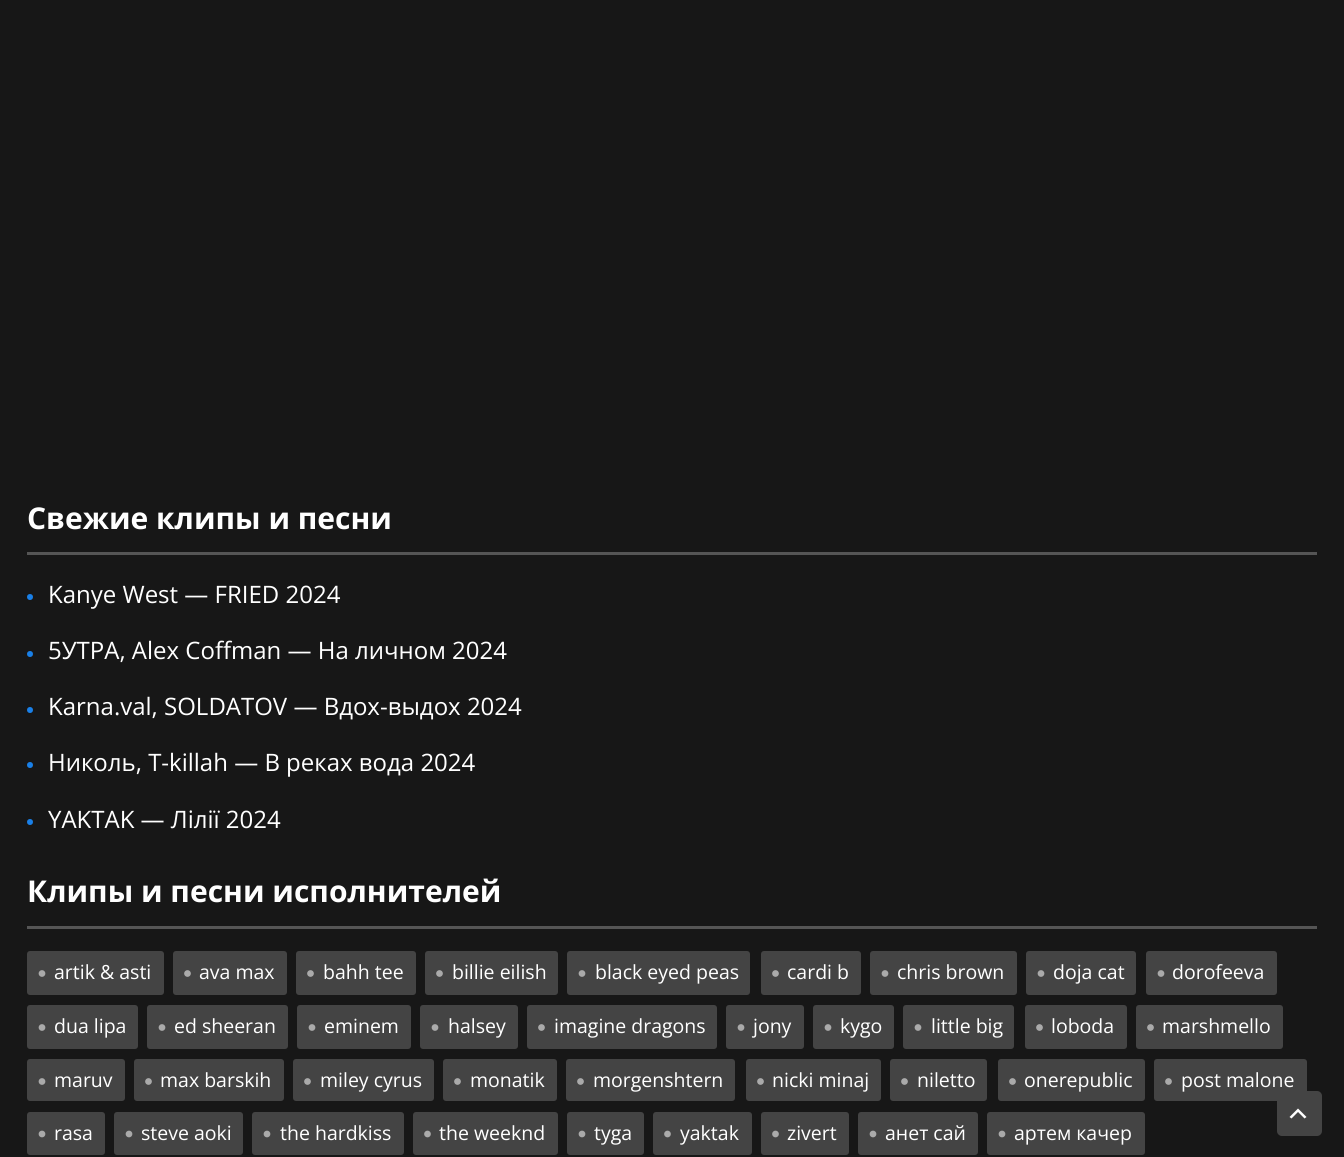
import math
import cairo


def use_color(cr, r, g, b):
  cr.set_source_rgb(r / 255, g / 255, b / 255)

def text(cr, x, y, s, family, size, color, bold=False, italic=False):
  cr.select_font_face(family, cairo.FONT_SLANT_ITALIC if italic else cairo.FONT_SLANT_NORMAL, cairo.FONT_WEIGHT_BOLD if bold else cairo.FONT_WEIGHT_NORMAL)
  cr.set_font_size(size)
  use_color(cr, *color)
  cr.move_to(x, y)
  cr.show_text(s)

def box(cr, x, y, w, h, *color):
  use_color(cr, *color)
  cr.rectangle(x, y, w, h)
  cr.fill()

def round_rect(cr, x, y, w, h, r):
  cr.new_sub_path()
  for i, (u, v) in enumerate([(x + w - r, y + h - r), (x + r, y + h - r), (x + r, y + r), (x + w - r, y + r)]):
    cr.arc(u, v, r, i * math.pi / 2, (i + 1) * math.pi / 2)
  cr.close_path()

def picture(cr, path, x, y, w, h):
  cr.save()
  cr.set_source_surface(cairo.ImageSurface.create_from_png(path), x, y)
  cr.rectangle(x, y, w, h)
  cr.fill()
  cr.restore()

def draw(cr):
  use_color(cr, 23, 23, 23)
  cr.paint()
  box(cr, 27, 552, 1290, 3, 85, 85, 85)
  use_color(cr, 25, 128, 232)
  cr.arc(30, 597, 3, 0, 2 * math.pi)
  cr.fill()
  cr.arc(30, 654, 3, 0, 2 * math.pi)
  cr.fill()
  cr.arc(30, 710, 3, 0, 2 * math.pi)
  cr.fill()
  cr.arc(30, 765, 3, 0, 2 * math.pi)
  cr.fill()
  cr.arc(30, 822, 3, 0, 2 * math.pi)
  cr.fill()
  box(cr, 27, 926, 1290, 3, 85, 85, 85)
  use_color(cr, 68, 68, 68)
  round_rect(cr, 27, 951, 137, 44, 3)
  cr.fill()
  picture(cr, "img_01.png", 38, 970, 8, 7)
  round_rect(cr, 173, 951, 114, 44, 3)
  cr.fill()
  picture(cr, "img_02.png", 184, 970, 7, 7)
  round_rect(cr, 296, 951, 120, 44, 3)
  cr.fill()
  picture(cr, "img_02.png", 307, 970, 7, 7)
  round_rect(cr, 425, 951, 133, 44, 3)
  cr.fill()
  picture(cr, "img_02.png", 436, 970, 7, 7)
  round_rect(cr, 567, 951, 183, 44, 3)
  cr.fill()
  picture(cr, "img_01.png", 578, 970, 8, 7)
  round_rect(cr, 761, 951, 100, 44, 3)
  cr.fill()
  picture(cr, "img_02.png", 772, 970, 7, 7)
  round_rect(cr, 870, 951, 147, 44, 3)
  cr.fill()
  picture(cr, "img_01.png", 881, 970, 8, 7)
  round_rect(cr, 1026, 951, 110, 44, 3)
  cr.fill()
  picture(cr, "img_01.png", 1037, 970, 8, 7)
  round_rect(cr, 1146, 951, 131, 44, 3)
  cr.fill()
  picture(cr, "img_01.png", 1157, 970, 8, 7)
  round_rect(cr, 27, 1005, 111, 44, 3)
  cr.fill()
  picture(cr, "img_01.png", 38, 1024, 8, 7)
  round_rect(cr, 147, 1005, 141, 44, 3)
  cr.fill()
  picture(cr, "img_01.png", 158, 1024, 8, 7)
  round_rect(cr, 297, 1005, 114, 44, 3)
  cr.fill()
  picture(cr, "img_01.png", 308, 1024, 8, 7)
  round_rect(cr, 420, 1005, 98, 44, 3)
  cr.fill()
  picture(cr, "img_01.png", 431, 1024, 8, 7)
  round_rect(cr, 527, 1005, 190, 44, 3)
  cr.fill()
  picture(cr, "img_02.png", 538, 1024, 7, 7)
  round_rect(cr, 726, 1005, 78, 44, 3)
  cr.fill()
  picture(cr, "img_01.png", 737, 1024, 8, 7)
  round_rect(cr, 813, 1005, 81, 44, 3)
  cr.fill()
  picture(cr, "img_01.png", 824, 1024, 8, 7)
  round_rect(cr, 903, 1005, 111, 44, 3)
  cr.fill()
  picture(cr, "img_01.png", 914, 1024, 8, 7)
  round_rect(cr, 1025, 1005, 102, 44, 3)
  cr.fill()
  picture(cr, "img_02.png", 1036, 1024, 7, 7)
  round_rect(cr, 1136, 1005, 147, 44, 3)
  cr.fill()
  picture(cr, "img_02.png", 1147, 1024, 7, 7)
  round_rect(cr, 27, 1059, 98, 42, 3)
  cr.fill()
  picture(cr, "img_01.png", 38, 1078, 8, 7)
  round_rect(cr, 134, 1059, 150, 42, 3)
  cr.fill()
  picture(cr, "img_02.png", 145, 1078, 7, 7)
  round_rect(cr, 293, 1059, 141, 42, 3)
  cr.fill()
  picture(cr, "img_02.png", 304, 1078, 7, 7)
  round_rect(cr, 443, 1059, 114, 42, 3)
  cr.fill()
  picture(cr, "img_02.png", 454, 1078, 7, 7)
  round_rect(cr, 566, 1059, 169, 42, 3)
  cr.fill()
  picture(cr, "img_02.png", 577, 1078, 7, 7)
  round_rect(cr, 746, 1059, 135, 42, 3)
  cr.fill()
  picture(cr, "img_02.png", 757, 1078, 7, 7)
  round_rect(cr, 890, 1059, 97, 42, 3)
  cr.fill()
  picture(cr, "img_02.png", 901, 1078, 7, 7)
  round_rect(cr, 998, 1059, 147, 42, 3)
  cr.fill()
  picture(cr, "img_02.png", 1009, 1078, 7, 7)
  round_rect(cr, 1154, 1059, 153, 42, 3)
  cr.fill()
  picture(cr, "img_02.png", 1165, 1078, 7, 7)
  round_rect(cr, 27, 1112, 78, 43, 3)
  cr.fill()
  picture(cr, "img_03.png", 38, 1130, 8, 8)
  round_rect(cr, 114, 1112, 129, 43, 3)
  cr.fill()
  picture(cr, "img_03.png", 125, 1130, 8, 8)
  round_rect(cr, 252, 1112, 152, 43, 3)
  cr.fill()
  picture(cr, "img_03.png", 263, 1130, 8, 8)
  round_rect(cr, 413, 1112, 145, 43, 3)
  cr.fill()
  picture(cr, "img_04.png", 424, 1130, 7, 8)
  round_rect(cr, 567, 1112, 77, 43, 3)
  cr.fill()
  picture(cr, "img_03.png", 578, 1130, 8, 8)
  round_rect(cr, 653, 1112, 99, 43, 3)
  cr.fill()
  picture(cr, "img_04.png", 664, 1130, 7, 8)
  round_rect(cr, 761, 1112, 88, 43, 3)
  cr.fill()
  picture(cr, "img_04.png", 772, 1130, 7, 8)
  round_rect(cr, 858, 1112, 120, 43, 3)
  cr.fill()
  picture(cr, "img_03.png", 869, 1130, 8, 8)
  round_rect(cr, 987, 1112, 158, 43, 3)
  cr.fill()
  picture(cr, "img_03.png", 998, 1130, 8, 8)
  text(cr, 27, 529, "Свежие клипы и песни", "Open Sans", 30, (255, 255, 255), bold=True)
  text(cr, 48, 603, "Kanye West — FRIED 2024", "Open Sans", 24, (255, 255, 255))
  text(cr, 48, 659, "5УТРА, Alex Coffman — На личном 2024", "Open Sans", 24, (255, 255, 255))
  text(cr, 48, 715, "Karna.val, SOLDATOV — Вдох-выдох 2024", "Open Sans", 24, (255, 255, 255))
  text(cr, 48, 771, "Николь, T-killah — В реках вода 2024", "Open Sans", 24, (255, 255, 255))
  text(cr, 48, 828, "YAKTAK — Лілії 2024", "Open Sans", 24, (255, 255, 255))
  text(cr, 27, 902, "Клипы и песни исполнителей", "Open Sans", 30, (255, 255, 255), bold=True)
  text(cr, 54, 979, "artik & asti", "Open Sans", 19.5, (255, 255, 255))
  text(cr, 199, 979, "ava max", "Open Sans", 19.5, (255, 255, 255))
  text(cr, 323, 979, "bahh tee", "Open Sans", 19.5, (255, 255, 255))
  text(cr, 452, 979, "billie eilish", "Open Sans", 19.5, (255, 255, 255))
  text(cr, 595, 979, "black eyed peas", "Open Sans", 19.5, (255, 255, 255))
  text(cr, 787, 979, "cardi b", "Open Sans", 19.5, (255, 255, 255))
  text(cr, 897, 979, "chris brown", "Open Sans", 19.5, (255, 255, 255))
  text(cr, 1053, 979, "doja cat", "Open Sans", 19.5, (255, 255, 255))
  text(cr, 1172, 979, "dorofeeva", "Open Sans", 19.5, (255, 255, 255))
  text(cr, 54, 1033, "dua lipa", "Open Sans", 19.5, (255, 255, 255))
  text(cr, 174, 1033, "ed sheeran", "Open Sans", 19.5, (255, 255, 255))
  text(cr, 324, 1033, "eminem", "Open Sans", 19.5, (255, 255, 255))
  text(cr, 448, 1033, "halsey", "Open Sans", 19.5, (255, 255, 255))
  text(cr, 554, 1033, "imagine dragons", "Open Sans", 19.5, (255, 255, 255))
  text(cr, 753, 1033, "jony", "Open Sans", 19.5, (255, 255, 255))
  text(cr, 840, 1033, "kygo", "Open Sans", 19.5, (255, 255, 255))
  text(cr, 931, 1033, "little big", "Open Sans", 19.5, (255, 255, 255))
  text(cr, 1051, 1033, "loboda", "Open Sans", 19.5, (255, 255, 255))
  text(cr, 1162, 1033, "marshmello", "Open Sans", 19.5, (255, 255, 255))
  text(cr, 54, 1087, "maruv", "Open Sans", 19.5, (255, 255, 255))
  text(cr, 160, 1087, "max barskih", "Open Sans", 19.5, (255, 255, 255))
  text(cr, 320, 1087, "miley cyrus", "Open Sans", 19.5, (255, 255, 255))
  text(cr, 470, 1087, "monatik", "Open Sans", 19.5, (255, 255, 255))
  text(cr, 593, 1087, "morgenshtern", "Open Sans", 19.5, (255, 255, 255))
  text(cr, 772, 1087, "nicki minaj", "Open Sans", 19.5, (255, 255, 255))
  text(cr, 917, 1087, "niletto", "Open Sans", 19.5, (255, 255, 255))
  text(cr, 1024, 1087, "onerepublic", "Open Sans", 19.5, (255, 255, 255))
  text(cr, 1181, 1087, "post malone", "Open Sans", 19.5, (255, 255, 255))
  text(cr, 54, 1140, "rasa", "Open Sans", 19.5, (255, 255, 255))
  text(cr, 141, 1140, "steve aoki", "Open Sans", 19.5, (255, 255, 255))
  text(cr, 280, 1140, "the hardkiss", "Open Sans", 19.5, (255, 255, 255))
  text(cr, 439, 1140, "the weeknd", "Open Sans", 19.5, (255, 255, 255))
  text(cr, 594, 1140, "tyga", "Open Sans", 19.5, (255, 255, 255))
  text(cr, 680, 1140, "yaktak", "Open Sans", 19.5, (255, 255, 255))
  text(cr, 787, 1140, "zivert", "Open Sans", 19.5, (255, 255, 255))
  text(cr, 885, 1140, "анет сай", "Open Sans", 19.5, (255, 255, 255))
  text(cr, 1014, 1140, "артем качер", "Open Sans", 19.5, (255, 255, 255))
  use_color(cr, 68, 68, 68)
  round_rect(cr, 1277, 1091, 45, 45, 5)
  cr.fill()
  use_color(cr, 255, 255, 255)
  cr.new_path()
  cr.move_to(1304.5, 1118.5)
  cr.line_to(1298, 1112)
  cr.line_to(1291.5, 1118.5)
  cr.line_to(1289.5, 1117)
  cr.line_to(1298, 1108.5)
  cr.line_to(1306.5, 1117)
  cr.close_path()
  cr.fill()


surface = cairo.ImageSurface(cairo.FORMAT_RGB24, 1344, 1157)
cr = cairo.Context(surface)
options = cairo.FontOptions()
options.set_hint_metrics(cairo.HINT_METRICS_OFF)
options.set_hint_style(cairo.HINT_STYLE_NONE)
cr.set_font_options(options)
cr.set_miter_limit(4)
draw(cr)
surface.write_to_png("out.png")
